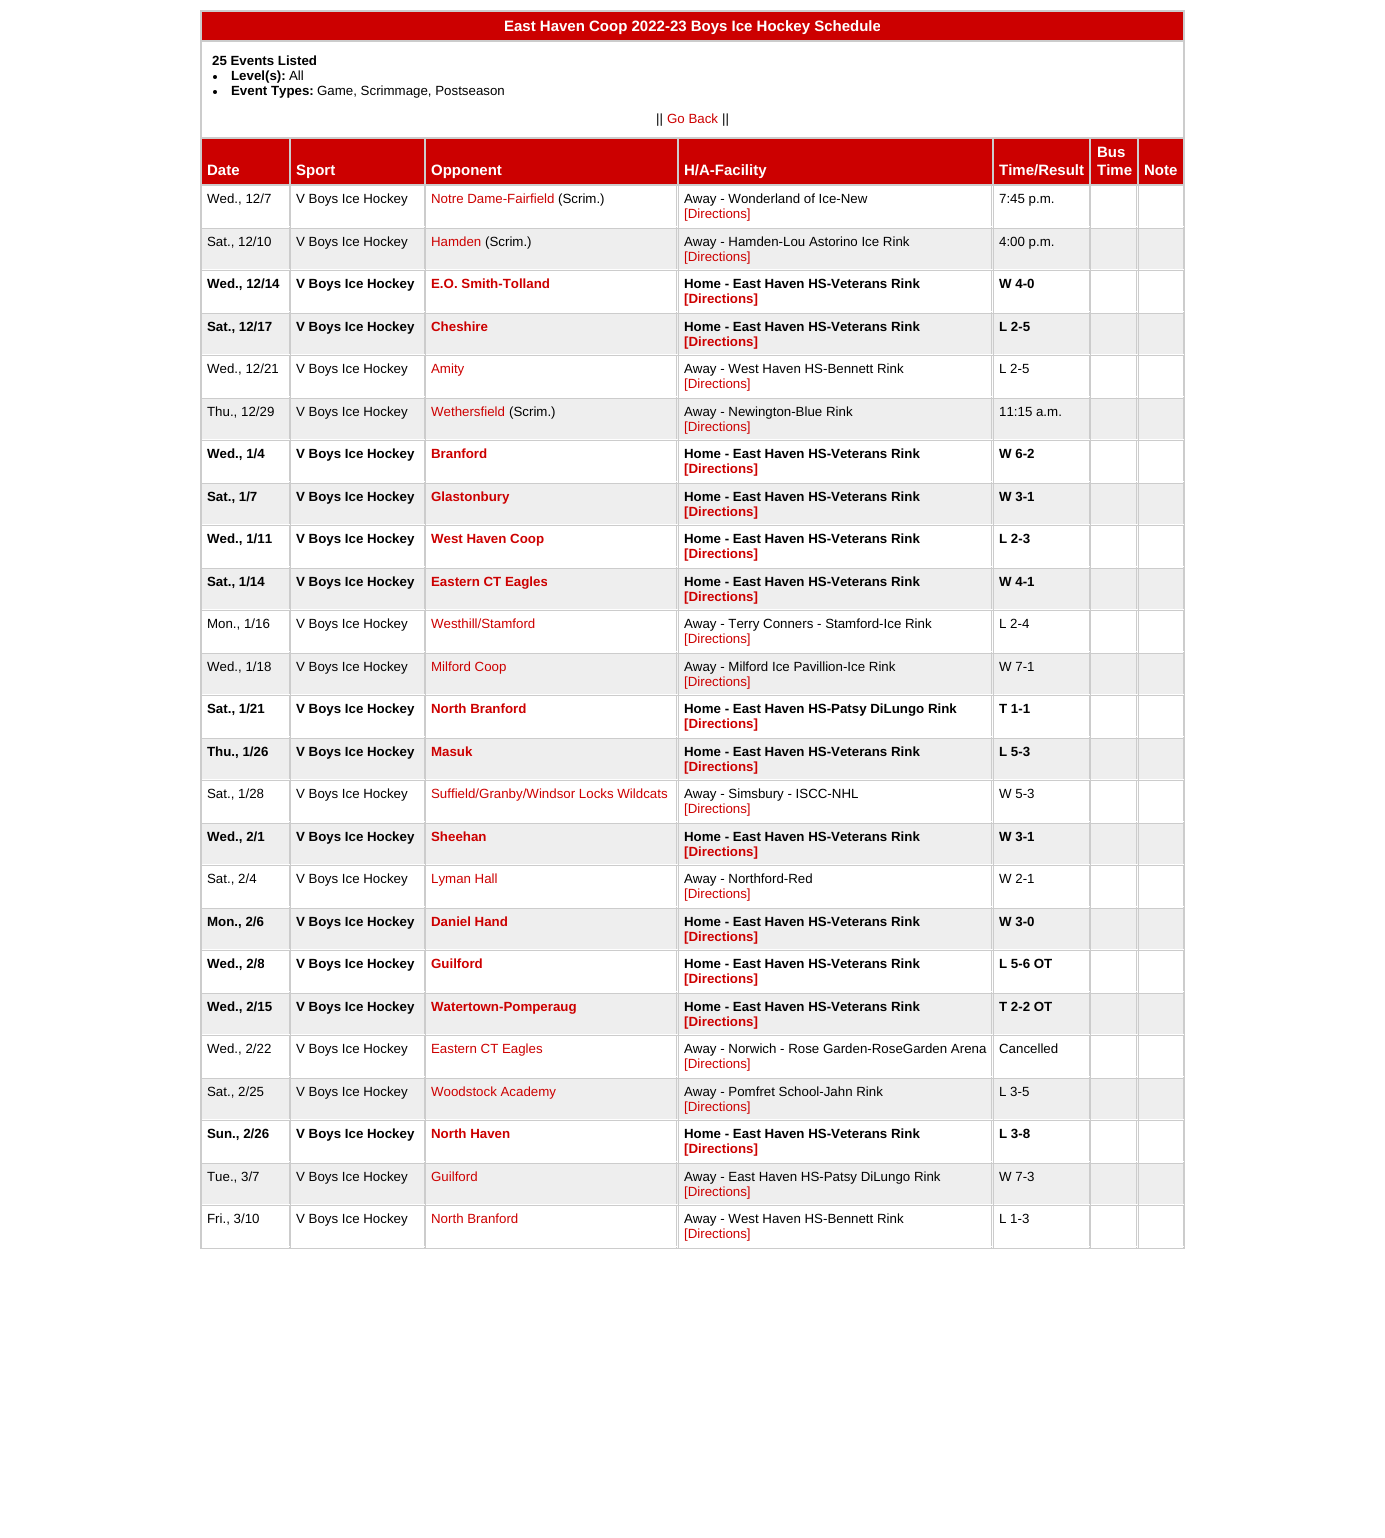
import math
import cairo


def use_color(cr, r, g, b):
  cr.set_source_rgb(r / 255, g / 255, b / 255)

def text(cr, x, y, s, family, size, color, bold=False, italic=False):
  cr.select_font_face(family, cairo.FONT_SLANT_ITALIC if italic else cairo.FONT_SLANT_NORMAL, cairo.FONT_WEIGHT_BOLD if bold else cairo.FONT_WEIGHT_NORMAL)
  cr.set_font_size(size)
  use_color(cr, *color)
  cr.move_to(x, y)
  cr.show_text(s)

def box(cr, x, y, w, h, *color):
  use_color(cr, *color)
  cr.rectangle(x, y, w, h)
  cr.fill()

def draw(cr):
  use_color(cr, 255, 255, 255)
  cr.paint()
  box(cr, 200, 10, 985, 1239, 204, 204, 204)
  box(cr, 202, 12, 981, 28, 204, 0, 0)
  box(cr, 202, 42, 981, 95, 255, 255, 255)
  use_color(cr, 0, 0, 0)
  cr.arc(215, 77, 2, 0, 2 * math.pi)
  cr.fill()
  cr.arc(215, 92, 2, 0, 2 * math.pi)
  cr.fill()
  box(cr, 202, 139, 87, 45, 204, 0, 0)
  box(cr, 291, 139, 133, 45, 204, 0, 0)
  box(cr, 426, 139, 251, 45, 204, 0, 0)
  box(cr, 679, 139, 313, 45, 204, 0, 0)
  box(cr, 994, 139, 95, 45, 204, 0, 0)
  box(cr, 1091, 139, 46, 45, 204, 0, 0)
  box(cr, 1139, 139, 44, 45, 204, 0, 0)
  box(cr, 202, 186, 981, 42, 255, 255, 255)
  box(cr, 289, 185, 2, 43, 204, 204, 204)
  box(cr, 201, 226, 89, 1, 255, 255, 255)
  box(cr, 201, 226, 1, 2, 204, 204, 204)
  box(cr, 424, 185, 2, 43, 204, 204, 204)
  box(cr, 424, 226, 1, 1, 255, 255, 255)
  box(cr, 676, 185, 1, 43, 204, 204, 204)
  box(cr, 676, 226, 2, 1, 255, 255, 255)
  box(cr, 991, 185, 1, 43, 204, 204, 204)
  box(cr, 991, 226, 2, 1, 255, 255, 255)
  box(cr, 678, 185, 1, 43, 204, 204, 204)
  box(cr, 1089, 185, 2, 43, 204, 204, 204)
  box(cr, 1089, 226, 1, 1, 255, 255, 255)
  box(cr, 993, 185, 1, 43, 204, 204, 204)
  box(cr, 1136, 185, 1, 43, 204, 204, 204)
  box(cr, 1136, 226, 2, 1, 255, 255, 255)
  box(cr, 1183, 226, 1, 1, 255, 255, 255)
  box(cr, 1138, 185, 1, 43, 204, 204, 204)
  box(cr, 202, 229, 981, 40, 238, 238, 238)
  box(cr, 1136, 228, 1, 42, 204, 204, 204)
  box(cr, 1090, 269, 94, 1, 255, 255, 255)
  box(cr, 1090, 228, 1, 42, 204, 204, 204)
  box(cr, 289, 228, 1, 42, 204, 204, 204)
  box(cr, 201, 269, 89, 1, 255, 255, 255)
  box(cr, 201, 269, 1, 1, 204, 204, 204)
  box(cr, 424, 228, 1, 42, 204, 204, 204)
  box(cr, 290, 269, 135, 1, 255, 255, 255)
  box(cr, 290, 228, 1, 42, 204, 204, 204)
  box(cr, 676, 228, 1, 42, 204, 204, 204)
  box(cr, 425, 269, 253, 1, 255, 255, 255)
  box(cr, 425, 228, 1, 42, 204, 204, 204)
  box(cr, 991, 228, 1, 42, 204, 204, 204)
  box(cr, 678, 269, 315, 1, 255, 255, 255)
  box(cr, 678, 228, 1, 42, 204, 204, 204)
  box(cr, 1089, 228, 1, 42, 204, 204, 204)
  box(cr, 993, 269, 97, 1, 255, 255, 255)
  box(cr, 993, 228, 1, 42, 204, 204, 204)
  box(cr, 1138, 228, 1, 42, 204, 204, 204)
  box(cr, 202, 271, 981, 42, 255, 255, 255)
  box(cr, 289, 270, 2, 43, 204, 204, 204)
  box(cr, 201, 311, 89, 1, 255, 255, 255)
  box(cr, 201, 311, 1, 2, 204, 204, 204)
  box(cr, 424, 270, 2, 43, 204, 204, 204)
  box(cr, 424, 311, 1, 1, 255, 255, 255)
  box(cr, 676, 270, 1, 43, 204, 204, 204)
  box(cr, 676, 311, 2, 1, 255, 255, 255)
  box(cr, 991, 270, 1, 43, 204, 204, 204)
  box(cr, 991, 311, 2, 1, 255, 255, 255)
  box(cr, 678, 270, 1, 43, 204, 204, 204)
  box(cr, 1089, 270, 2, 43, 204, 204, 204)
  box(cr, 1089, 311, 1, 1, 255, 255, 255)
  box(cr, 993, 270, 1, 43, 204, 204, 204)
  box(cr, 1136, 270, 1, 43, 204, 204, 204)
  box(cr, 1136, 311, 2, 1, 255, 255, 255)
  box(cr, 1183, 311, 1, 1, 255, 255, 255)
  box(cr, 1138, 270, 1, 43, 204, 204, 204)
  box(cr, 202, 314, 981, 40, 238, 238, 238)
  box(cr, 1136, 313, 1, 42, 204, 204, 204)
  box(cr, 1090, 354, 94, 1, 255, 255, 255)
  box(cr, 1090, 313, 1, 42, 204, 204, 204)
  box(cr, 289, 313, 1, 42, 204, 204, 204)
  box(cr, 201, 354, 89, 1, 255, 255, 255)
  box(cr, 201, 354, 1, 1, 204, 204, 204)
  box(cr, 424, 313, 1, 42, 204, 204, 204)
  box(cr, 290, 354, 135, 1, 255, 255, 255)
  box(cr, 290, 313, 1, 42, 204, 204, 204)
  box(cr, 676, 313, 1, 42, 204, 204, 204)
  box(cr, 425, 354, 253, 1, 255, 255, 255)
  box(cr, 425, 313, 1, 42, 204, 204, 204)
  box(cr, 991, 313, 1, 42, 204, 204, 204)
  box(cr, 678, 354, 315, 1, 255, 255, 255)
  box(cr, 678, 313, 1, 42, 204, 204, 204)
  box(cr, 1089, 313, 1, 42, 204, 204, 204)
  box(cr, 993, 354, 97, 1, 255, 255, 255)
  box(cr, 993, 313, 1, 42, 204, 204, 204)
  box(cr, 1138, 313, 1, 42, 204, 204, 204)
  box(cr, 202, 356, 981, 42, 255, 255, 255)
  box(cr, 289, 355, 2, 43, 204, 204, 204)
  box(cr, 201, 396, 89, 1, 255, 255, 255)
  box(cr, 201, 396, 1, 2, 204, 204, 204)
  box(cr, 424, 355, 2, 43, 204, 204, 204)
  box(cr, 424, 396, 1, 1, 255, 255, 255)
  box(cr, 676, 355, 1, 43, 204, 204, 204)
  box(cr, 676, 396, 2, 1, 255, 255, 255)
  box(cr, 991, 355, 1, 43, 204, 204, 204)
  box(cr, 991, 396, 2, 1, 255, 255, 255)
  box(cr, 678, 355, 1, 43, 204, 204, 204)
  box(cr, 1089, 355, 2, 43, 204, 204, 204)
  box(cr, 1089, 396, 1, 1, 255, 255, 255)
  box(cr, 993, 355, 1, 43, 204, 204, 204)
  box(cr, 1136, 355, 1, 43, 204, 204, 204)
  box(cr, 1136, 396, 2, 1, 255, 255, 255)
  box(cr, 1183, 396, 1, 1, 255, 255, 255)
  box(cr, 1138, 355, 1, 43, 204, 204, 204)
  box(cr, 202, 399, 981, 40, 238, 238, 238)
  box(cr, 1136, 398, 1, 42, 204, 204, 204)
  box(cr, 1090, 439, 94, 1, 255, 255, 255)
  box(cr, 1090, 398, 1, 42, 204, 204, 204)
  box(cr, 289, 398, 1, 42, 204, 204, 204)
  box(cr, 201, 439, 89, 1, 255, 255, 255)
  box(cr, 201, 439, 1, 1, 204, 204, 204)
  box(cr, 424, 398, 1, 42, 204, 204, 204)
  box(cr, 290, 439, 135, 1, 255, 255, 255)
  box(cr, 290, 398, 1, 42, 204, 204, 204)
  box(cr, 676, 398, 1, 42, 204, 204, 204)
  box(cr, 425, 439, 253, 1, 255, 255, 255)
  box(cr, 425, 398, 1, 42, 204, 204, 204)
  box(cr, 991, 398, 1, 42, 204, 204, 204)
  box(cr, 678, 439, 315, 1, 255, 255, 255)
  box(cr, 678, 398, 1, 42, 204, 204, 204)
  box(cr, 1089, 398, 1, 42, 204, 204, 204)
  box(cr, 993, 439, 97, 1, 255, 255, 255)
  box(cr, 993, 398, 1, 42, 204, 204, 204)
  box(cr, 1138, 398, 1, 42, 204, 204, 204)
  box(cr, 202, 441, 981, 42, 255, 255, 255)
  box(cr, 289, 440, 2, 43, 204, 204, 204)
  box(cr, 201, 481, 89, 1, 255, 255, 255)
  box(cr, 201, 481, 1, 2, 204, 204, 204)
  box(cr, 424, 440, 2, 43, 204, 204, 204)
  box(cr, 424, 481, 1, 1, 255, 255, 255)
  box(cr, 676, 440, 1, 43, 204, 204, 204)
  box(cr, 676, 481, 2, 1, 255, 255, 255)
  box(cr, 991, 440, 1, 43, 204, 204, 204)
  box(cr, 991, 481, 2, 1, 255, 255, 255)
  box(cr, 678, 440, 1, 43, 204, 204, 204)
  box(cr, 1089, 440, 2, 43, 204, 204, 204)
  box(cr, 1089, 481, 1, 1, 255, 255, 255)
  box(cr, 993, 440, 1, 43, 204, 204, 204)
  box(cr, 1136, 440, 1, 43, 204, 204, 204)
  box(cr, 1136, 481, 2, 1, 255, 255, 255)
  box(cr, 1183, 481, 1, 1, 255, 255, 255)
  box(cr, 1138, 440, 1, 43, 204, 204, 204)
  box(cr, 202, 484, 981, 40, 238, 238, 238)
  box(cr, 1136, 483, 1, 42, 204, 204, 204)
  box(cr, 1090, 524, 94, 1, 255, 255, 255)
  box(cr, 1090, 483, 1, 42, 204, 204, 204)
  box(cr, 289, 483, 1, 42, 204, 204, 204)
  box(cr, 201, 524, 89, 1, 255, 255, 255)
  box(cr, 201, 524, 1, 1, 204, 204, 204)
  box(cr, 424, 483, 1, 42, 204, 204, 204)
  box(cr, 290, 524, 135, 1, 255, 255, 255)
  box(cr, 290, 483, 1, 42, 204, 204, 204)
  box(cr, 676, 483, 1, 42, 204, 204, 204)
  box(cr, 425, 524, 253, 1, 255, 255, 255)
  box(cr, 425, 483, 1, 42, 204, 204, 204)
  box(cr, 991, 483, 1, 42, 204, 204, 204)
  box(cr, 678, 524, 315, 1, 255, 255, 255)
  box(cr, 678, 483, 1, 42, 204, 204, 204)
  box(cr, 1089, 483, 1, 42, 204, 204, 204)
  box(cr, 993, 524, 97, 1, 255, 255, 255)
  box(cr, 993, 483, 1, 42, 204, 204, 204)
  box(cr, 1138, 483, 1, 42, 204, 204, 204)
  box(cr, 202, 526, 981, 42, 255, 255, 255)
  box(cr, 289, 525, 2, 43, 204, 204, 204)
  box(cr, 201, 566, 89, 1, 255, 255, 255)
  box(cr, 201, 566, 1, 2, 204, 204, 204)
  box(cr, 424, 525, 2, 43, 204, 204, 204)
  box(cr, 424, 566, 1, 1, 255, 255, 255)
  box(cr, 676, 525, 1, 43, 204, 204, 204)
  box(cr, 676, 566, 2, 1, 255, 255, 255)
  box(cr, 991, 525, 1, 43, 204, 204, 204)
  box(cr, 991, 566, 2, 1, 255, 255, 255)
  box(cr, 678, 525, 1, 43, 204, 204, 204)
  box(cr, 1089, 525, 2, 43, 204, 204, 204)
  box(cr, 1089, 566, 1, 1, 255, 255, 255)
  box(cr, 993, 525, 1, 43, 204, 204, 204)
  box(cr, 1136, 525, 1, 43, 204, 204, 204)
  box(cr, 1136, 566, 2, 1, 255, 255, 255)
  box(cr, 1183, 566, 1, 1, 255, 255, 255)
  box(cr, 1138, 525, 1, 43, 204, 204, 204)
  box(cr, 202, 569, 981, 40, 238, 238, 238)
  box(cr, 1136, 568, 1, 42, 204, 204, 204)
  box(cr, 1090, 609, 94, 1, 255, 255, 255)
  box(cr, 1090, 568, 1, 42, 204, 204, 204)
  box(cr, 289, 568, 1, 42, 204, 204, 204)
  box(cr, 201, 609, 89, 1, 255, 255, 255)
  box(cr, 201, 609, 1, 1, 204, 204, 204)
  box(cr, 424, 568, 1, 42, 204, 204, 204)
  box(cr, 290, 609, 135, 1, 255, 255, 255)
  box(cr, 290, 568, 1, 42, 204, 204, 204)
  box(cr, 676, 568, 1, 42, 204, 204, 204)
  box(cr, 425, 609, 253, 1, 255, 255, 255)
  box(cr, 425, 568, 1, 42, 204, 204, 204)
  box(cr, 991, 568, 1, 42, 204, 204, 204)
  box(cr, 678, 609, 315, 1, 255, 255, 255)
  box(cr, 678, 568, 1, 42, 204, 204, 204)
  box(cr, 1089, 568, 1, 42, 204, 204, 204)
  box(cr, 993, 609, 97, 1, 255, 255, 255)
  box(cr, 993, 568, 1, 42, 204, 204, 204)
  box(cr, 1138, 568, 1, 42, 204, 204, 204)
  box(cr, 202, 611, 981, 42, 255, 255, 255)
  box(cr, 289, 610, 2, 43, 204, 204, 204)
  box(cr, 201, 651, 89, 1, 255, 255, 255)
  box(cr, 201, 651, 1, 2, 204, 204, 204)
  box(cr, 424, 610, 2, 43, 204, 204, 204)
  box(cr, 424, 651, 1, 1, 255, 255, 255)
  box(cr, 676, 610, 1, 43, 204, 204, 204)
  box(cr, 676, 651, 2, 1, 255, 255, 255)
  box(cr, 991, 610, 1, 43, 204, 204, 204)
  box(cr, 991, 651, 2, 1, 255, 255, 255)
  box(cr, 678, 610, 1, 43, 204, 204, 204)
  box(cr, 1089, 610, 2, 43, 204, 204, 204)
  box(cr, 1089, 651, 1, 1, 255, 255, 255)
  box(cr, 993, 610, 1, 43, 204, 204, 204)
  box(cr, 1136, 610, 1, 43, 204, 204, 204)
  box(cr, 1136, 651, 2, 1, 255, 255, 255)
  box(cr, 1183, 651, 1, 1, 255, 255, 255)
  box(cr, 1138, 610, 1, 43, 204, 204, 204)
  box(cr, 202, 654, 981, 40, 238, 238, 238)
  box(cr, 1136, 653, 1, 42, 204, 204, 204)
  box(cr, 1090, 694, 94, 1, 255, 255, 255)
  box(cr, 1090, 653, 1, 42, 204, 204, 204)
  box(cr, 289, 653, 1, 42, 204, 204, 204)
  box(cr, 201, 694, 89, 1, 255, 255, 255)
  box(cr, 201, 694, 1, 1, 204, 204, 204)
  box(cr, 424, 653, 1, 42, 204, 204, 204)
  box(cr, 290, 694, 135, 1, 255, 255, 255)
  box(cr, 290, 653, 1, 42, 204, 204, 204)
  box(cr, 676, 653, 1, 42, 204, 204, 204)
  box(cr, 425, 694, 253, 1, 255, 255, 255)
  box(cr, 425, 653, 1, 42, 204, 204, 204)
  box(cr, 991, 653, 1, 42, 204, 204, 204)
  box(cr, 678, 694, 315, 1, 255, 255, 255)
  box(cr, 678, 653, 1, 42, 204, 204, 204)
  box(cr, 1089, 653, 1, 42, 204, 204, 204)
  box(cr, 993, 694, 97, 1, 255, 255, 255)
  box(cr, 993, 653, 1, 42, 204, 204, 204)
  box(cr, 1138, 653, 1, 42, 204, 204, 204)
  box(cr, 202, 696, 981, 42, 255, 255, 255)
  box(cr, 289, 695, 2, 43, 204, 204, 204)
  box(cr, 201, 736, 89, 1, 255, 255, 255)
  box(cr, 201, 736, 1, 2, 204, 204, 204)
  box(cr, 424, 695, 2, 43, 204, 204, 204)
  box(cr, 424, 736, 1, 1, 255, 255, 255)
  box(cr, 676, 695, 1, 43, 204, 204, 204)
  box(cr, 676, 736, 2, 1, 255, 255, 255)
  box(cr, 991, 695, 1, 43, 204, 204, 204)
  box(cr, 991, 736, 2, 1, 255, 255, 255)
  box(cr, 678, 695, 1, 43, 204, 204, 204)
  box(cr, 1089, 695, 2, 43, 204, 204, 204)
  box(cr, 1089, 736, 1, 1, 255, 255, 255)
  box(cr, 993, 695, 1, 43, 204, 204, 204)
  box(cr, 1136, 695, 1, 43, 204, 204, 204)
  box(cr, 1136, 736, 2, 1, 255, 255, 255)
  box(cr, 1183, 736, 1, 1, 255, 255, 255)
  box(cr, 1138, 695, 1, 43, 204, 204, 204)
  box(cr, 202, 739, 981, 40, 238, 238, 238)
  box(cr, 1136, 738, 1, 42, 204, 204, 204)
  box(cr, 1090, 779, 94, 1, 255, 255, 255)
  box(cr, 1090, 738, 1, 42, 204, 204, 204)
  box(cr, 289, 738, 1, 42, 204, 204, 204)
  box(cr, 201, 779, 89, 1, 255, 255, 255)
  box(cr, 201, 779, 1, 1, 204, 204, 204)
  box(cr, 424, 738, 1, 42, 204, 204, 204)
  box(cr, 290, 779, 135, 1, 255, 255, 255)
  box(cr, 290, 738, 1, 42, 204, 204, 204)
  box(cr, 676, 738, 1, 42, 204, 204, 204)
  box(cr, 425, 779, 253, 1, 255, 255, 255)
  box(cr, 425, 738, 1, 42, 204, 204, 204)
  box(cr, 991, 738, 1, 42, 204, 204, 204)
  box(cr, 678, 779, 315, 1, 255, 255, 255)
  box(cr, 678, 738, 1, 42, 204, 204, 204)
  box(cr, 1089, 738, 1, 42, 204, 204, 204)
  box(cr, 993, 779, 97, 1, 255, 255, 255)
  box(cr, 993, 738, 1, 42, 204, 204, 204)
  box(cr, 1138, 738, 1, 42, 204, 204, 204)
  box(cr, 202, 781, 981, 42, 255, 255, 255)
  box(cr, 289, 780, 2, 43, 204, 204, 204)
  box(cr, 201, 821, 89, 1, 255, 255, 255)
  box(cr, 201, 821, 1, 2, 204, 204, 204)
  box(cr, 424, 780, 2, 43, 204, 204, 204)
  box(cr, 424, 821, 1, 1, 255, 255, 255)
  box(cr, 676, 780, 1, 43, 204, 204, 204)
  box(cr, 676, 821, 2, 1, 255, 255, 255)
  box(cr, 991, 780, 1, 43, 204, 204, 204)
  box(cr, 991, 821, 2, 1, 255, 255, 255)
  box(cr, 678, 780, 1, 43, 204, 204, 204)
  box(cr, 1089, 780, 2, 43, 204, 204, 204)
  box(cr, 1089, 821, 1, 1, 255, 255, 255)
  box(cr, 993, 780, 1, 43, 204, 204, 204)
  box(cr, 1136, 780, 1, 43, 204, 204, 204)
  box(cr, 1136, 821, 2, 1, 255, 255, 255)
  box(cr, 1183, 821, 1, 1, 255, 255, 255)
  box(cr, 1138, 780, 1, 43, 204, 204, 204)
  box(cr, 202, 824, 981, 40, 238, 238, 238)
  box(cr, 1136, 823, 1, 42, 204, 204, 204)
  box(cr, 1090, 864, 94, 1, 255, 255, 255)
  box(cr, 1090, 823, 1, 42, 204, 204, 204)
  box(cr, 289, 823, 1, 42, 204, 204, 204)
  box(cr, 201, 864, 89, 1, 255, 255, 255)
  box(cr, 201, 864, 1, 1, 204, 204, 204)
  box(cr, 424, 823, 1, 42, 204, 204, 204)
  box(cr, 290, 864, 135, 1, 255, 255, 255)
  box(cr, 290, 823, 1, 42, 204, 204, 204)
  box(cr, 676, 823, 1, 42, 204, 204, 204)
  box(cr, 425, 864, 253, 1, 255, 255, 255)
  box(cr, 425, 823, 1, 42, 204, 204, 204)
  box(cr, 991, 823, 1, 42, 204, 204, 204)
  box(cr, 678, 864, 315, 1, 255, 255, 255)
  box(cr, 678, 823, 1, 42, 204, 204, 204)
  box(cr, 1089, 823, 1, 42, 204, 204, 204)
  box(cr, 993, 864, 97, 1, 255, 255, 255)
  box(cr, 993, 823, 1, 42, 204, 204, 204)
  box(cr, 1138, 823, 1, 42, 204, 204, 204)
  box(cr, 202, 866, 981, 42, 255, 255, 255)
  box(cr, 289, 865, 2, 43, 204, 204, 204)
  box(cr, 201, 906, 89, 1, 255, 255, 255)
  box(cr, 201, 906, 1, 2, 204, 204, 204)
  box(cr, 424, 865, 2, 43, 204, 204, 204)
  box(cr, 424, 906, 1, 1, 255, 255, 255)
  box(cr, 676, 865, 1, 43, 204, 204, 204)
  box(cr, 676, 906, 2, 1, 255, 255, 255)
  box(cr, 991, 865, 1, 43, 204, 204, 204)
  box(cr, 991, 906, 2, 1, 255, 255, 255)
  box(cr, 678, 865, 1, 43, 204, 204, 204)
  box(cr, 1089, 865, 2, 43, 204, 204, 204)
  box(cr, 1089, 906, 1, 1, 255, 255, 255)
  box(cr, 993, 865, 1, 43, 204, 204, 204)
  box(cr, 1136, 865, 1, 43, 204, 204, 204)
  box(cr, 1136, 906, 2, 1, 255, 255, 255)
  box(cr, 1183, 906, 1, 1, 255, 255, 255)
  box(cr, 1138, 865, 1, 43, 204, 204, 204)
  box(cr, 202, 909, 981, 40, 238, 238, 238)
  box(cr, 1136, 908, 1, 42, 204, 204, 204)
  box(cr, 1090, 949, 94, 1, 255, 255, 255)
  box(cr, 1090, 908, 1, 42, 204, 204, 204)
  box(cr, 289, 908, 1, 42, 204, 204, 204)
  box(cr, 201, 949, 89, 1, 255, 255, 255)
  box(cr, 201, 949, 1, 1, 204, 204, 204)
  box(cr, 424, 908, 1, 42, 204, 204, 204)
  box(cr, 290, 949, 135, 1, 255, 255, 255)
  box(cr, 290, 908, 1, 42, 204, 204, 204)
  box(cr, 676, 908, 1, 42, 204, 204, 204)
  box(cr, 425, 949, 253, 1, 255, 255, 255)
  box(cr, 425, 908, 1, 42, 204, 204, 204)
  box(cr, 991, 908, 1, 42, 204, 204, 204)
  box(cr, 678, 949, 315, 1, 255, 255, 255)
  box(cr, 678, 908, 1, 42, 204, 204, 204)
  box(cr, 1089, 908, 1, 42, 204, 204, 204)
  box(cr, 993, 949, 97, 1, 255, 255, 255)
  box(cr, 993, 908, 1, 42, 204, 204, 204)
  box(cr, 1138, 908, 1, 42, 204, 204, 204)
  box(cr, 202, 951, 981, 42, 255, 255, 255)
  box(cr, 289, 950, 2, 43, 204, 204, 204)
  box(cr, 201, 991, 89, 1, 255, 255, 255)
  box(cr, 201, 991, 1, 2, 204, 204, 204)
  box(cr, 424, 950, 2, 43, 204, 204, 204)
  box(cr, 424, 991, 1, 1, 255, 255, 255)
  box(cr, 676, 950, 1, 43, 204, 204, 204)
  box(cr, 676, 991, 2, 1, 255, 255, 255)
  box(cr, 991, 950, 1, 43, 204, 204, 204)
  box(cr, 991, 991, 2, 1, 255, 255, 255)
  box(cr, 678, 950, 1, 43, 204, 204, 204)
  box(cr, 1089, 950, 2, 43, 204, 204, 204)
  box(cr, 1089, 991, 1, 1, 255, 255, 255)
  box(cr, 993, 950, 1, 43, 204, 204, 204)
  box(cr, 1136, 950, 1, 43, 204, 204, 204)
  box(cr, 1136, 991, 2, 1, 255, 255, 255)
  box(cr, 1183, 991, 1, 1, 255, 255, 255)
  box(cr, 1138, 950, 1, 43, 204, 204, 204)
  box(cr, 202, 994, 981, 40, 238, 238, 238)
  box(cr, 1136, 993, 1, 42, 204, 204, 204)
  box(cr, 1090, 1034, 94, 1, 255, 255, 255)
  box(cr, 1090, 993, 1, 42, 204, 204, 204)
  box(cr, 289, 993, 1, 42, 204, 204, 204)
  box(cr, 201, 1034, 89, 1, 255, 255, 255)
  box(cr, 201, 1034, 1, 1, 204, 204, 204)
  box(cr, 424, 993, 1, 42, 204, 204, 204)
  box(cr, 290, 1034, 135, 1, 255, 255, 255)
  box(cr, 290, 993, 1, 42, 204, 204, 204)
  box(cr, 676, 993, 1, 42, 204, 204, 204)
  box(cr, 425, 1034, 253, 1, 255, 255, 255)
  box(cr, 425, 993, 1, 42, 204, 204, 204)
  box(cr, 991, 993, 1, 42, 204, 204, 204)
  box(cr, 678, 1034, 315, 1, 255, 255, 255)
  box(cr, 678, 993, 1, 42, 204, 204, 204)
  box(cr, 1089, 993, 1, 42, 204, 204, 204)
  box(cr, 993, 1034, 97, 1, 255, 255, 255)
  box(cr, 993, 993, 1, 42, 204, 204, 204)
  box(cr, 1138, 993, 1, 42, 204, 204, 204)
  box(cr, 202, 1036, 981, 42, 255, 255, 255)
  box(cr, 289, 1035, 2, 43, 204, 204, 204)
  box(cr, 201, 1076, 89, 1, 255, 255, 255)
  box(cr, 201, 1076, 1, 2, 204, 204, 204)
  box(cr, 424, 1035, 2, 43, 204, 204, 204)
  box(cr, 424, 1076, 1, 1, 255, 255, 255)
  box(cr, 676, 1035, 1, 43, 204, 204, 204)
  box(cr, 676, 1076, 2, 1, 255, 255, 255)
  box(cr, 991, 1035, 1, 43, 204, 204, 204)
  box(cr, 991, 1076, 2, 1, 255, 255, 255)
  box(cr, 678, 1035, 1, 43, 204, 204, 204)
  box(cr, 1089, 1035, 2, 43, 204, 204, 204)
  box(cr, 1089, 1076, 1, 1, 255, 255, 255)
  box(cr, 993, 1035, 1, 43, 204, 204, 204)
  box(cr, 1136, 1035, 1, 43, 204, 204, 204)
  box(cr, 1136, 1076, 2, 1, 255, 255, 255)
  box(cr, 1183, 1076, 1, 1, 255, 255, 255)
  box(cr, 1138, 1035, 1, 43, 204, 204, 204)
  box(cr, 202, 1079, 981, 40, 238, 238, 238)
  box(cr, 1136, 1078, 1, 42, 204, 204, 204)
  box(cr, 1090, 1119, 94, 1, 255, 255, 255)
  box(cr, 1090, 1078, 1, 42, 204, 204, 204)
  box(cr, 289, 1078, 1, 42, 204, 204, 204)
  box(cr, 201, 1119, 89, 1, 255, 255, 255)
  box(cr, 201, 1119, 1, 1, 204, 204, 204)
  box(cr, 424, 1078, 1, 42, 204, 204, 204)
  box(cr, 290, 1119, 135, 1, 255, 255, 255)
  box(cr, 290, 1078, 1, 42, 204, 204, 204)
  box(cr, 676, 1078, 1, 42, 204, 204, 204)
  box(cr, 425, 1119, 253, 1, 255, 255, 255)
  box(cr, 425, 1078, 1, 42, 204, 204, 204)
  box(cr, 991, 1078, 1, 42, 204, 204, 204)
  box(cr, 678, 1119, 315, 1, 255, 255, 255)
  box(cr, 678, 1078, 1, 42, 204, 204, 204)
  box(cr, 1089, 1078, 1, 42, 204, 204, 204)
  box(cr, 993, 1119, 97, 1, 255, 255, 255)
  box(cr, 993, 1078, 1, 42, 204, 204, 204)
  box(cr, 1138, 1078, 1, 42, 204, 204, 204)
  box(cr, 202, 1121, 981, 42, 255, 255, 255)
  box(cr, 289, 1120, 2, 43, 204, 204, 204)
  box(cr, 201, 1161, 89, 1, 255, 255, 255)
  box(cr, 201, 1161, 1, 2, 204, 204, 204)
  box(cr, 424, 1120, 2, 43, 204, 204, 204)
  box(cr, 424, 1161, 1, 1, 255, 255, 255)
  box(cr, 676, 1120, 1, 43, 204, 204, 204)
  box(cr, 676, 1161, 2, 1, 255, 255, 255)
  box(cr, 991, 1120, 1, 43, 204, 204, 204)
  box(cr, 991, 1161, 2, 1, 255, 255, 255)
  box(cr, 678, 1120, 1, 43, 204, 204, 204)
  box(cr, 1089, 1120, 2, 43, 204, 204, 204)
  box(cr, 1089, 1161, 1, 1, 255, 255, 255)
  box(cr, 993, 1120, 1, 43, 204, 204, 204)
  box(cr, 1136, 1120, 1, 43, 204, 204, 204)
  box(cr, 1136, 1161, 2, 1, 255, 255, 255)
  box(cr, 1183, 1161, 1, 1, 255, 255, 255)
  box(cr, 1138, 1120, 1, 43, 204, 204, 204)
  box(cr, 202, 1164, 981, 40, 238, 238, 238)
  box(cr, 1136, 1163, 1, 42, 204, 204, 204)
  box(cr, 1090, 1204, 94, 1, 255, 255, 255)
  box(cr, 1090, 1163, 1, 42, 204, 204, 204)
  box(cr, 289, 1163, 1, 42, 204, 204, 204)
  box(cr, 201, 1204, 89, 1, 255, 255, 255)
  box(cr, 201, 1204, 1, 1, 204, 204, 204)
  box(cr, 424, 1163, 1, 42, 204, 204, 204)
  box(cr, 290, 1204, 135, 1, 255, 255, 255)
  box(cr, 290, 1163, 1, 42, 204, 204, 204)
  box(cr, 676, 1163, 1, 42, 204, 204, 204)
  box(cr, 425, 1204, 253, 1, 255, 255, 255)
  box(cr, 425, 1163, 1, 42, 204, 204, 204)
  box(cr, 991, 1163, 1, 42, 204, 204, 204)
  box(cr, 678, 1204, 315, 1, 255, 255, 255)
  box(cr, 678, 1163, 1, 42, 204, 204, 204)
  box(cr, 1089, 1163, 1, 42, 204, 204, 204)
  box(cr, 993, 1204, 97, 1, 255, 255, 255)
  box(cr, 993, 1163, 1, 42, 204, 204, 204)
  box(cr, 1138, 1163, 1, 42, 204, 204, 204)
  box(cr, 202, 1206, 981, 42, 255, 255, 255)
  box(cr, 289, 1205, 2, 43, 204, 204, 204)
  box(cr, 201, 1246, 89, 1, 255, 255, 255)
  box(cr, 201, 1246, 1, 2, 204, 204, 204)
  box(cr, 424, 1205, 2, 43, 204, 204, 204)
  box(cr, 424, 1246, 1, 1, 255, 255, 255)
  box(cr, 676, 1205, 1, 43, 204, 204, 204)
  box(cr, 676, 1246, 2, 1, 255, 255, 255)
  box(cr, 991, 1205, 1, 43, 204, 204, 204)
  box(cr, 991, 1246, 2, 1, 255, 255, 255)
  box(cr, 678, 1205, 1, 43, 204, 204, 204)
  box(cr, 1089, 1205, 2, 43, 204, 204, 204)
  box(cr, 1089, 1246, 1, 1, 255, 255, 255)
  box(cr, 993, 1205, 1, 43, 204, 204, 204)
  box(cr, 1136, 1205, 1, 43, 204, 204, 204)
  box(cr, 1136, 1246, 2, 1, 255, 255, 255)
  box(cr, 1183, 1246, 1, 1, 255, 255, 255)
  box(cr, 1138, 1205, 1, 43, 204, 204, 204)
  text(cr, 504, 31, "East Haven Coop 2022-23 Boys Ice Hockey Schedule", "Liberation Sans", 15, (255, 255, 255), bold=True)
  text(cr, 212, 65, "25 Events Listed", "Liberation Sans", 13.3, (0, 0, 0), bold=True)
  text(cr, 231, 80, "Level(s):", "Liberation Sans", 13.3, (0, 0, 0), bold=True)
  text(cr, 289, 80, "All", "Liberation Sans", 13.3, (0, 0, 0))
  text(cr, 231, 95, "Event Types:", "Liberation Sans", 13.3, (0, 0, 0), bold=True)
  text(cr, 317, 95, "Game, Scrimmage, Postseason", "Liberation Sans", 13.3, (0, 0, 0))
  text(cr, 656, 123, "||", "Liberation Sans", 13.3, (0, 0, 0))
  text(cr, 667, 123, "Go Back", "Liberation Sans", 13.3, (204, 0, 0))
  text(cr, 722, 123, "||", "Liberation Sans", 13.3, (0, 0, 0))
  text(cr, 207, 175, "Date", "Liberation Sans", 15, (255, 255, 255), bold=True)
  text(cr, 296, 175, "Sport", "Liberation Sans", 15, (255, 255, 255), bold=True)
  text(cr, 431, 175, "Opponent", "Liberation Sans", 15, (255, 255, 255), bold=True)
  text(cr, 684, 175, "H/A-Facility", "Liberation Sans", 15, (255, 255, 255), bold=True)
  text(cr, 999, 175, "Time/Result", "Liberation Sans", 15, (255, 255, 255), bold=True)
  text(cr, 1097, 157, "Bus", "Liberation Sans", 15, (255, 255, 255), bold=True)
  text(cr, 1097, 175, "Time", "Liberation Sans", 15, (255, 255, 255), bold=True)
  text(cr, 1144, 175, "Note", "Liberation Sans", 15, (255, 255, 255), bold=True)
  text(cr, 207, 203, "Wed., 12/7", "Liberation Sans", 13.3, (0, 0, 0))
  text(cr, 296, 203, "V Boys Ice Hockey", "Liberation Sans", 13.3, (0, 0, 0))
  text(cr, 431, 203, "Notre Dame-Fairfield", "Liberation Sans", 13.3, (204, 0, 0))
  text(cr, 558, 203, "(Scrim.)", "Liberation Sans", 13.3, (0, 0, 0))
  text(cr, 684, 203, "Away - Wonderland of Ice-New", "Liberation Sans", 13.3, (0, 0, 0))
  text(cr, 684, 218, "[Directions]", "Liberation Sans", 13.3, (204, 0, 0))
  text(cr, 999, 203, "7:45 p.m.", "Liberation Sans", 13.3, (0, 0, 0))
  text(cr, 207, 246, "Sat., 12/10", "Liberation Sans", 13.3, (0, 0, 0))
  text(cr, 296, 246, "V Boys Ice Hockey", "Liberation Sans", 13.3, (0, 0, 0))
  text(cr, 431, 246, "Hamden", "Liberation Sans", 13.3, (204, 0, 0))
  text(cr, 485, 246, "(Scrim.)", "Liberation Sans", 13.3, (0, 0, 0))
  text(cr, 684, 246, "Away - Hamden-Lou Astorino Ice Rink", "Liberation Sans", 13.3, (0, 0, 0))
  text(cr, 684, 261, "[Directions]", "Liberation Sans", 13.3, (204, 0, 0))
  text(cr, 999, 246, "4:00 p.m.", "Liberation Sans", 13.3, (0, 0, 0))
  text(cr, 207, 288, "Wed., 12/14", "Liberation Sans", 13.3, (0, 0, 0), bold=True)
  text(cr, 296, 288, "V Boys Ice Hockey", "Liberation Sans", 13.3, (0, 0, 0), bold=True)
  text(cr, 431, 288, "E.O. Smith-Tolland", "Liberation Sans", 13.3, (204, 0, 0), bold=True)
  text(cr, 684, 288, "Home - East Haven HS-Veterans Rink", "Liberation Sans", 13.3, (0, 0, 0), bold=True)
  text(cr, 684, 303, "[Directions]", "Liberation Sans", 13.3, (204, 0, 0), bold=True)
  text(cr, 999, 288, "W 4-0", "Liberation Sans", 13.3, (0, 0, 0), bold=True)
  text(cr, 207, 331, "Sat., 12/17", "Liberation Sans", 13.3, (0, 0, 0), bold=True)
  text(cr, 296, 331, "V Boys Ice Hockey", "Liberation Sans", 13.3, (0, 0, 0), bold=True)
  text(cr, 431, 331, "Cheshire", "Liberation Sans", 13.3, (204, 0, 0), bold=True)
  text(cr, 684, 331, "Home - East Haven HS-Veterans Rink", "Liberation Sans", 13.3, (0, 0, 0), bold=True)
  text(cr, 684, 346, "[Directions]", "Liberation Sans", 13.3, (204, 0, 0), bold=True)
  text(cr, 999, 331, "L 2-5", "Liberation Sans", 13.3, (0, 0, 0), bold=True)
  text(cr, 207, 373, "Wed., 12/21", "Liberation Sans", 13.3, (0, 0, 0))
  text(cr, 296, 373, "V Boys Ice Hockey", "Liberation Sans", 13.3, (0, 0, 0))
  text(cr, 431, 373, "Amity", "Liberation Sans", 13.3, (204, 0, 0))
  text(cr, 684, 373, "Away - West Haven HS-Bennett Rink", "Liberation Sans", 13.3, (0, 0, 0))
  text(cr, 684, 388, "[Directions]", "Liberation Sans", 13.3, (204, 0, 0))
  text(cr, 999, 373, "L 2-5", "Liberation Sans", 13.3, (0, 0, 0))
  text(cr, 207, 416, "Thu., 12/29", "Liberation Sans", 13.3, (0, 0, 0))
  text(cr, 296, 416, "V Boys Ice Hockey", "Liberation Sans", 13.3, (0, 0, 0))
  text(cr, 431, 416, "Wethersfield", "Liberation Sans", 13.3, (204, 0, 0))
  text(cr, 509, 416, "(Scrim.)", "Liberation Sans", 13.3, (0, 0, 0))
  text(cr, 684, 416, "Away - Newington-Blue Rink", "Liberation Sans", 13.3, (0, 0, 0))
  text(cr, 684, 431, "[Directions]", "Liberation Sans", 13.3, (204, 0, 0))
  text(cr, 999, 416, "11:15 a.m.", "Liberation Sans", 13.3, (0, 0, 0))
  text(cr, 207, 458, "Wed., 1/4", "Liberation Sans", 13.3, (0, 0, 0), bold=True)
  text(cr, 296, 458, "V Boys Ice Hockey", "Liberation Sans", 13.3, (0, 0, 0), bold=True)
  text(cr, 431, 458, "Branford", "Liberation Sans", 13.3, (204, 0, 0), bold=True)
  text(cr, 684, 458, "Home - East Haven HS-Veterans Rink", "Liberation Sans", 13.3, (0, 0, 0), bold=True)
  text(cr, 684, 473, "[Directions]", "Liberation Sans", 13.3, (204, 0, 0), bold=True)
  text(cr, 999, 458, "W 6-2", "Liberation Sans", 13.3, (0, 0, 0), bold=True)
  text(cr, 207, 501, "Sat., 1/7", "Liberation Sans", 13.3, (0, 0, 0), bold=True)
  text(cr, 296, 501, "V Boys Ice Hockey", "Liberation Sans", 13.3, (0, 0, 0), bold=True)
  text(cr, 431, 501, "Glastonbury", "Liberation Sans", 13.3, (204, 0, 0), bold=True)
  text(cr, 684, 501, "Home - East Haven HS-Veterans Rink", "Liberation Sans", 13.3, (0, 0, 0), bold=True)
  text(cr, 684, 516, "[Directions]", "Liberation Sans", 13.3, (204, 0, 0), bold=True)
  text(cr, 999, 501, "W 3-1", "Liberation Sans", 13.3, (0, 0, 0), bold=True)
  text(cr, 207, 543, "Wed., 1/11", "Liberation Sans", 13.3, (0, 0, 0), bold=True)
  text(cr, 296, 543, "V Boys Ice Hockey", "Liberation Sans", 13.3, (0, 0, 0), bold=True)
  text(cr, 431, 543, "West Haven Coop", "Liberation Sans", 13.3, (204, 0, 0), bold=True)
  text(cr, 684, 543, "Home - East Haven HS-Veterans Rink", "Liberation Sans", 13.3, (0, 0, 0), bold=True)
  text(cr, 684, 558, "[Directions]", "Liberation Sans", 13.3, (204, 0, 0), bold=True)
  text(cr, 999, 543, "L 2-3", "Liberation Sans", 13.3, (0, 0, 0), bold=True)
  text(cr, 207, 586, "Sat., 1/14", "Liberation Sans", 13.3, (0, 0, 0), bold=True)
  text(cr, 296, 586, "V Boys Ice Hockey", "Liberation Sans", 13.3, (0, 0, 0), bold=True)
  text(cr, 431, 586, "Eastern CT Eagles", "Liberation Sans", 13.3, (204, 0, 0), bold=True)
  text(cr, 684, 586, "Home - East Haven HS-Veterans Rink", "Liberation Sans", 13.3, (0, 0, 0), bold=True)
  text(cr, 684, 601, "[Directions]", "Liberation Sans", 13.3, (204, 0, 0), bold=True)
  text(cr, 999, 586, "W 4-1", "Liberation Sans", 13.3, (0, 0, 0), bold=True)
  text(cr, 207, 628, "Mon., 1/16", "Liberation Sans", 13.3, (0, 0, 0))
  text(cr, 296, 628, "V Boys Ice Hockey", "Liberation Sans", 13.3, (0, 0, 0))
  text(cr, 431, 628, "Westhill/Stamford", "Liberation Sans", 13.3, (204, 0, 0))
  text(cr, 684, 628, "Away - Terry Conners - Stamford-Ice Rink", "Liberation Sans", 13.3, (0, 0, 0))
  text(cr, 684, 643, "[Directions]", "Liberation Sans", 13.3, (204, 0, 0))
  text(cr, 999, 628, "L 2-4", "Liberation Sans", 13.3, (0, 0, 0))
  text(cr, 207, 671, "Wed., 1/18", "Liberation Sans", 13.3, (0, 0, 0))
  text(cr, 296, 671, "V Boys Ice Hockey", "Liberation Sans", 13.3, (0, 0, 0))
  text(cr, 431, 671, "Milford Coop", "Liberation Sans", 13.3, (204, 0, 0))
  text(cr, 684, 671, "Away - Milford Ice Pavillion-Ice Rink", "Liberation Sans", 13.3, (0, 0, 0))
  text(cr, 684, 686, "[Directions]", "Liberation Sans", 13.3, (204, 0, 0))
  text(cr, 999, 671, "W 7-1", "Liberation Sans", 13.3, (0, 0, 0))
  text(cr, 207, 713, "Sat., 1/21", "Liberation Sans", 13.3, (0, 0, 0), bold=True)
  text(cr, 296, 713, "V Boys Ice Hockey", "Liberation Sans", 13.3, (0, 0, 0), bold=True)
  text(cr, 431, 713, "North Branford", "Liberation Sans", 13.3, (204, 0, 0), bold=True)
  text(cr, 684, 713, "Home - East Haven HS-Patsy DiLungo Rink", "Liberation Sans", 13.3, (0, 0, 0), bold=True)
  text(cr, 684, 728, "[Directions]", "Liberation Sans", 13.3, (204, 0, 0), bold=True)
  text(cr, 999, 713, "T 1-1", "Liberation Sans", 13.3, (0, 0, 0), bold=True)
  text(cr, 207, 756, "Thu., 1/26", "Liberation Sans", 13.3, (0, 0, 0), bold=True)
  text(cr, 296, 756, "V Boys Ice Hockey", "Liberation Sans", 13.3, (0, 0, 0), bold=True)
  text(cr, 431, 756, "Masuk", "Liberation Sans", 13.3, (204, 0, 0), bold=True)
  text(cr, 684, 756, "Home - East Haven HS-Veterans Rink", "Liberation Sans", 13.3, (0, 0, 0), bold=True)
  text(cr, 684, 771, "[Directions]", "Liberation Sans", 13.3, (204, 0, 0), bold=True)
  text(cr, 999, 756, "L 5-3", "Liberation Sans", 13.3, (0, 0, 0), bold=True)
  text(cr, 207, 798, "Sat., 1/28", "Liberation Sans", 13.3, (0, 0, 0))
  text(cr, 296, 798, "V Boys Ice Hockey", "Liberation Sans", 13.3, (0, 0, 0))
  text(cr, 431, 798, "Suffield/Granby/Windsor Locks Wildcats", "Liberation Sans", 13.3, (204, 0, 0))
  text(cr, 684, 798, "Away - Simsbury - ISCC-NHL", "Liberation Sans", 13.3, (0, 0, 0))
  text(cr, 684, 813, "[Directions]", "Liberation Sans", 13.3, (204, 0, 0))
  text(cr, 999, 798, "W 5-3", "Liberation Sans", 13.3, (0, 0, 0))
  text(cr, 207, 841, "Wed., 2/1", "Liberation Sans", 13.3, (0, 0, 0), bold=True)
  text(cr, 296, 841, "V Boys Ice Hockey", "Liberation Sans", 13.3, (0, 0, 0), bold=True)
  text(cr, 431, 841, "Sheehan", "Liberation Sans", 13.3, (204, 0, 0), bold=True)
  text(cr, 684, 841, "Home - East Haven HS-Veterans Rink", "Liberation Sans", 13.3, (0, 0, 0), bold=True)
  text(cr, 684, 856, "[Directions]", "Liberation Sans", 13.3, (204, 0, 0), bold=True)
  text(cr, 999, 841, "W 3-1", "Liberation Sans", 13.3, (0, 0, 0), bold=True)
  text(cr, 207, 883, "Sat., 2/4", "Liberation Sans", 13.3, (0, 0, 0))
  text(cr, 296, 883, "V Boys Ice Hockey", "Liberation Sans", 13.3, (0, 0, 0))
  text(cr, 431, 883, "Lyman Hall", "Liberation Sans", 13.3, (204, 0, 0))
  text(cr, 684, 883, "Away - Northford-Red", "Liberation Sans", 13.3, (0, 0, 0))
  text(cr, 684, 898, "[Directions]", "Liberation Sans", 13.3, (204, 0, 0))
  text(cr, 999, 883, "W 2-1", "Liberation Sans", 13.3, (0, 0, 0))
  text(cr, 207, 926, "Mon., 2/6", "Liberation Sans", 13.3, (0, 0, 0), bold=True)
  text(cr, 296, 926, "V Boys Ice Hockey", "Liberation Sans", 13.3, (0, 0, 0), bold=True)
  text(cr, 431, 926, "Daniel Hand", "Liberation Sans", 13.3, (204, 0, 0), bold=True)
  text(cr, 684, 926, "Home - East Haven HS-Veterans Rink", "Liberation Sans", 13.3, (0, 0, 0), bold=True)
  text(cr, 684, 941, "[Directions]", "Liberation Sans", 13.3, (204, 0, 0), bold=True)
  text(cr, 999, 926, "W 3-0", "Liberation Sans", 13.3, (0, 0, 0), bold=True)
  text(cr, 207, 968, "Wed., 2/8", "Liberation Sans", 13.3, (0, 0, 0), bold=True)
  text(cr, 296, 968, "V Boys Ice Hockey", "Liberation Sans", 13.3, (0, 0, 0), bold=True)
  text(cr, 431, 968, "Guilford", "Liberation Sans", 13.3, (204, 0, 0), bold=True)
  text(cr, 684, 968, "Home - East Haven HS-Veterans Rink", "Liberation Sans", 13.3, (0, 0, 0), bold=True)
  text(cr, 684, 983, "[Directions]", "Liberation Sans", 13.3, (204, 0, 0), bold=True)
  text(cr, 999, 968, "L 5-6 OT", "Liberation Sans", 13.3, (0, 0, 0), bold=True)
  text(cr, 207, 1011, "Wed., 2/15", "Liberation Sans", 13.3, (0, 0, 0), bold=True)
  text(cr, 296, 1011, "V Boys Ice Hockey", "Liberation Sans", 13.3, (0, 0, 0), bold=True)
  text(cr, 431, 1011, "Watertown-Pomperaug", "Liberation Sans", 13.3, (204, 0, 0), bold=True)
  text(cr, 684, 1011, "Home - East Haven HS-Veterans Rink", "Liberation Sans", 13.3, (0, 0, 0), bold=True)
  text(cr, 684, 1026, "[Directions]", "Liberation Sans", 13.3, (204, 0, 0), bold=True)
  text(cr, 999, 1011, "T 2-2 OT", "Liberation Sans", 13.3, (0, 0, 0), bold=True)
  text(cr, 207, 1053, "Wed., 2/22", "Liberation Sans", 13.3, (0, 0, 0))
  text(cr, 296, 1053, "V Boys Ice Hockey", "Liberation Sans", 13.3, (0, 0, 0))
  text(cr, 431, 1053, "Eastern CT Eagles", "Liberation Sans", 13.3, (204, 0, 0))
  text(cr, 684, 1053, "Away - Norwich - Rose Garden-RoseGarden Arena", "Liberation Sans", 13.3, (0, 0, 0))
  text(cr, 684, 1068, "[Directions]", "Liberation Sans", 13.3, (204, 0, 0))
  text(cr, 999, 1053, "Cancelled", "Liberation Sans", 13.3, (0, 0, 0))
  text(cr, 207, 1096, "Sat., 2/25", "Liberation Sans", 13.3, (0, 0, 0))
  text(cr, 296, 1096, "V Boys Ice Hockey", "Liberation Sans", 13.3, (0, 0, 0))
  text(cr, 431, 1096, "Woodstock Academy", "Liberation Sans", 13.3, (204, 0, 0))
  text(cr, 684, 1096, "Away - Pomfret School-Jahn Rink", "Liberation Sans", 13.3, (0, 0, 0))
  text(cr, 684, 1111, "[Directions]", "Liberation Sans", 13.3, (204, 0, 0))
  text(cr, 999, 1096, "L 3-5", "Liberation Sans", 13.3, (0, 0, 0))
  text(cr, 207, 1138, "Sun., 2/26", "Liberation Sans", 13.3, (0, 0, 0), bold=True)
  text(cr, 296, 1138, "V Boys Ice Hockey", "Liberation Sans", 13.3, (0, 0, 0), bold=True)
  text(cr, 431, 1138, "North Haven", "Liberation Sans", 13.3, (204, 0, 0), bold=True)
  text(cr, 684, 1138, "Home - East Haven HS-Veterans Rink", "Liberation Sans", 13.3, (0, 0, 0), bold=True)
  text(cr, 684, 1153, "[Directions]", "Liberation Sans", 13.3, (204, 0, 0), bold=True)
  text(cr, 999, 1138, "L 3-8", "Liberation Sans", 13.3, (0, 0, 0), bold=True)
  text(cr, 207, 1181, "Tue., 3/7", "Liberation Sans", 13.3, (0, 0, 0))
  text(cr, 296, 1181, "V Boys Ice Hockey", "Liberation Sans", 13.3, (0, 0, 0))
  text(cr, 431, 1181, "Guilford", "Liberation Sans", 13.3, (204, 0, 0))
  text(cr, 684, 1181, "Away - East Haven HS-Patsy DiLungo Rink", "Liberation Sans", 13.3, (0, 0, 0))
  text(cr, 684, 1196, "[Directions]", "Liberation Sans", 13.3, (204, 0, 0))
  text(cr, 999, 1181, "W 7-3", "Liberation Sans", 13.3, (0, 0, 0))
  text(cr, 207, 1223, "Fri., 3/10", "Liberation Sans", 13.3, (0, 0, 0))
  text(cr, 296, 1223, "V Boys Ice Hockey", "Liberation Sans", 13.3, (0, 0, 0))
  text(cr, 431, 1223, "North Branford", "Liberation Sans", 13.3, (204, 0, 0))
  text(cr, 684, 1223, "Away - West Haven HS-Bennett Rink", "Liberation Sans", 13.3, (0, 0, 0))
  text(cr, 684, 1238, "[Directions]", "Liberation Sans", 13.3, (204, 0, 0))
  text(cr, 999, 1223, "L 1-3", "Liberation Sans", 13.3, (0, 0, 0))


surface = cairo.ImageSurface(cairo.FORMAT_RGB24, 1385, 1538)
cr = cairo.Context(surface)
options = cairo.FontOptions()
options.set_hint_metrics(cairo.HINT_METRICS_OFF)
options.set_hint_style(cairo.HINT_STYLE_NONE)
cr.set_font_options(options)
cr.set_miter_limit(4)
draw(cr)
surface.write_to_png("out.png")
